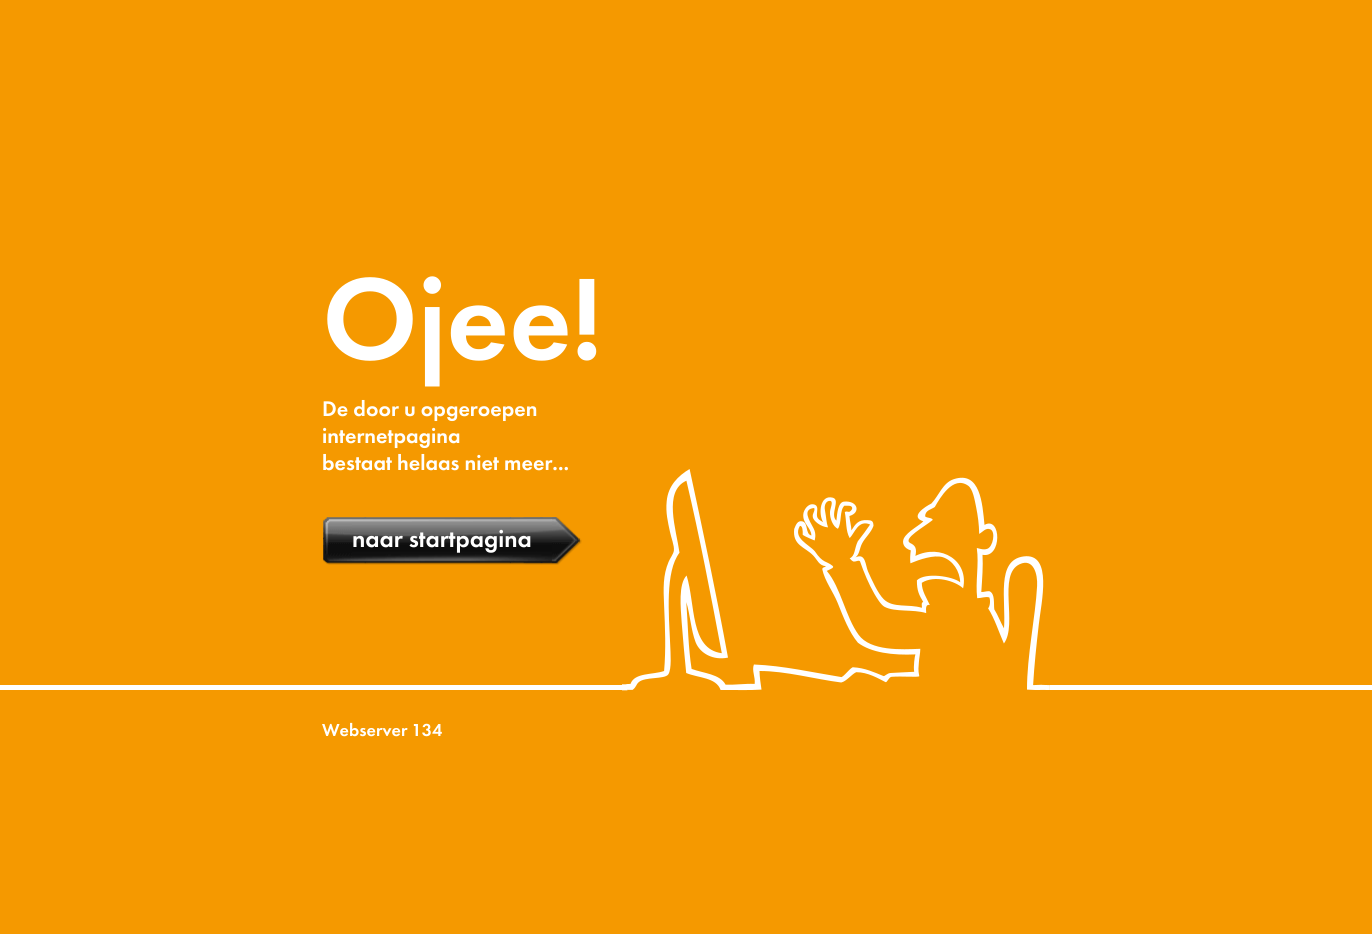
import math
import cairo


def use_color(cr, r, g, b):
  cr.set_source_rgb(r / 255, g / 255, b / 255)

def text(cr, x, y, s, family, size, color, bold=False, italic=False):
  cr.select_font_face(family, cairo.FONT_SLANT_ITALIC if italic else cairo.FONT_SLANT_NORMAL, cairo.FONT_WEIGHT_BOLD if bold else cairo.FONT_WEIGHT_NORMAL)
  cr.set_font_size(size)
  use_color(cr, *color)
  cr.move_to(x, y)
  cr.show_text(s)

def box(cr, x, y, w, h, *color):
  use_color(cr, *color)
  cr.rectangle(x, y, w, h)
  cr.fill()

def picture(cr, path, x, y, w, h):
  cr.save()
  cr.set_source_surface(cairo.ImageSurface.create_from_png(path), x, y)
  cr.rectangle(x, y, w, h)
  cr.fill()
  cr.restore()

def draw(cr):
  use_color(cr, 245, 153, 0)
  cr.paint()
  picture(cr, "img_01.png", 323, 517, 29, 48)
  picture(cr, "img_02.png", 352, 517, 200, 48)
  picture(cr, "img_03.png", 552, 517, 30, 48)
  box(cr, 0, 685, 1372, 5, 255, 255, 255)
  box(cr, 622, 685, 428, 5, 245, 153, 0)
  picture(cr, "img_04.png", 622, 469, 428, 222)
  text(cr, 322, 359, "Ojee!", "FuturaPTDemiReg", 120, (255, 255, 255))
  text(cr, 322, 416, "De door u opgeroepen", "FuturaPTDemiReg", 22, (255, 255, 255))
  text(cr, 322, 443, "internetpagina", "FuturaPTDemiReg", 22, (255, 255, 255))
  text(cr, 322, 470, "bestaat helaas niet meer...", "FuturaPTDemiReg", 22, (255, 255, 255))
  text(cr, 352, 547, "naar startpagina", "FuturaPTDemiReg", 25, (255, 255, 255))
  text(cr, 322, 736, "Webserver 134", "FuturaPTDemiReg", 18, (255, 255, 255))


surface = cairo.ImageSurface(cairo.FORMAT_RGB24, 1372, 934)
cr = cairo.Context(surface)
options = cairo.FontOptions()
options.set_hint_metrics(cairo.HINT_METRICS_OFF)
options.set_hint_style(cairo.HINT_STYLE_NONE)
cr.set_font_options(options)
cr.set_miter_limit(4)
draw(cr)
surface.write_to_png("out.png")
